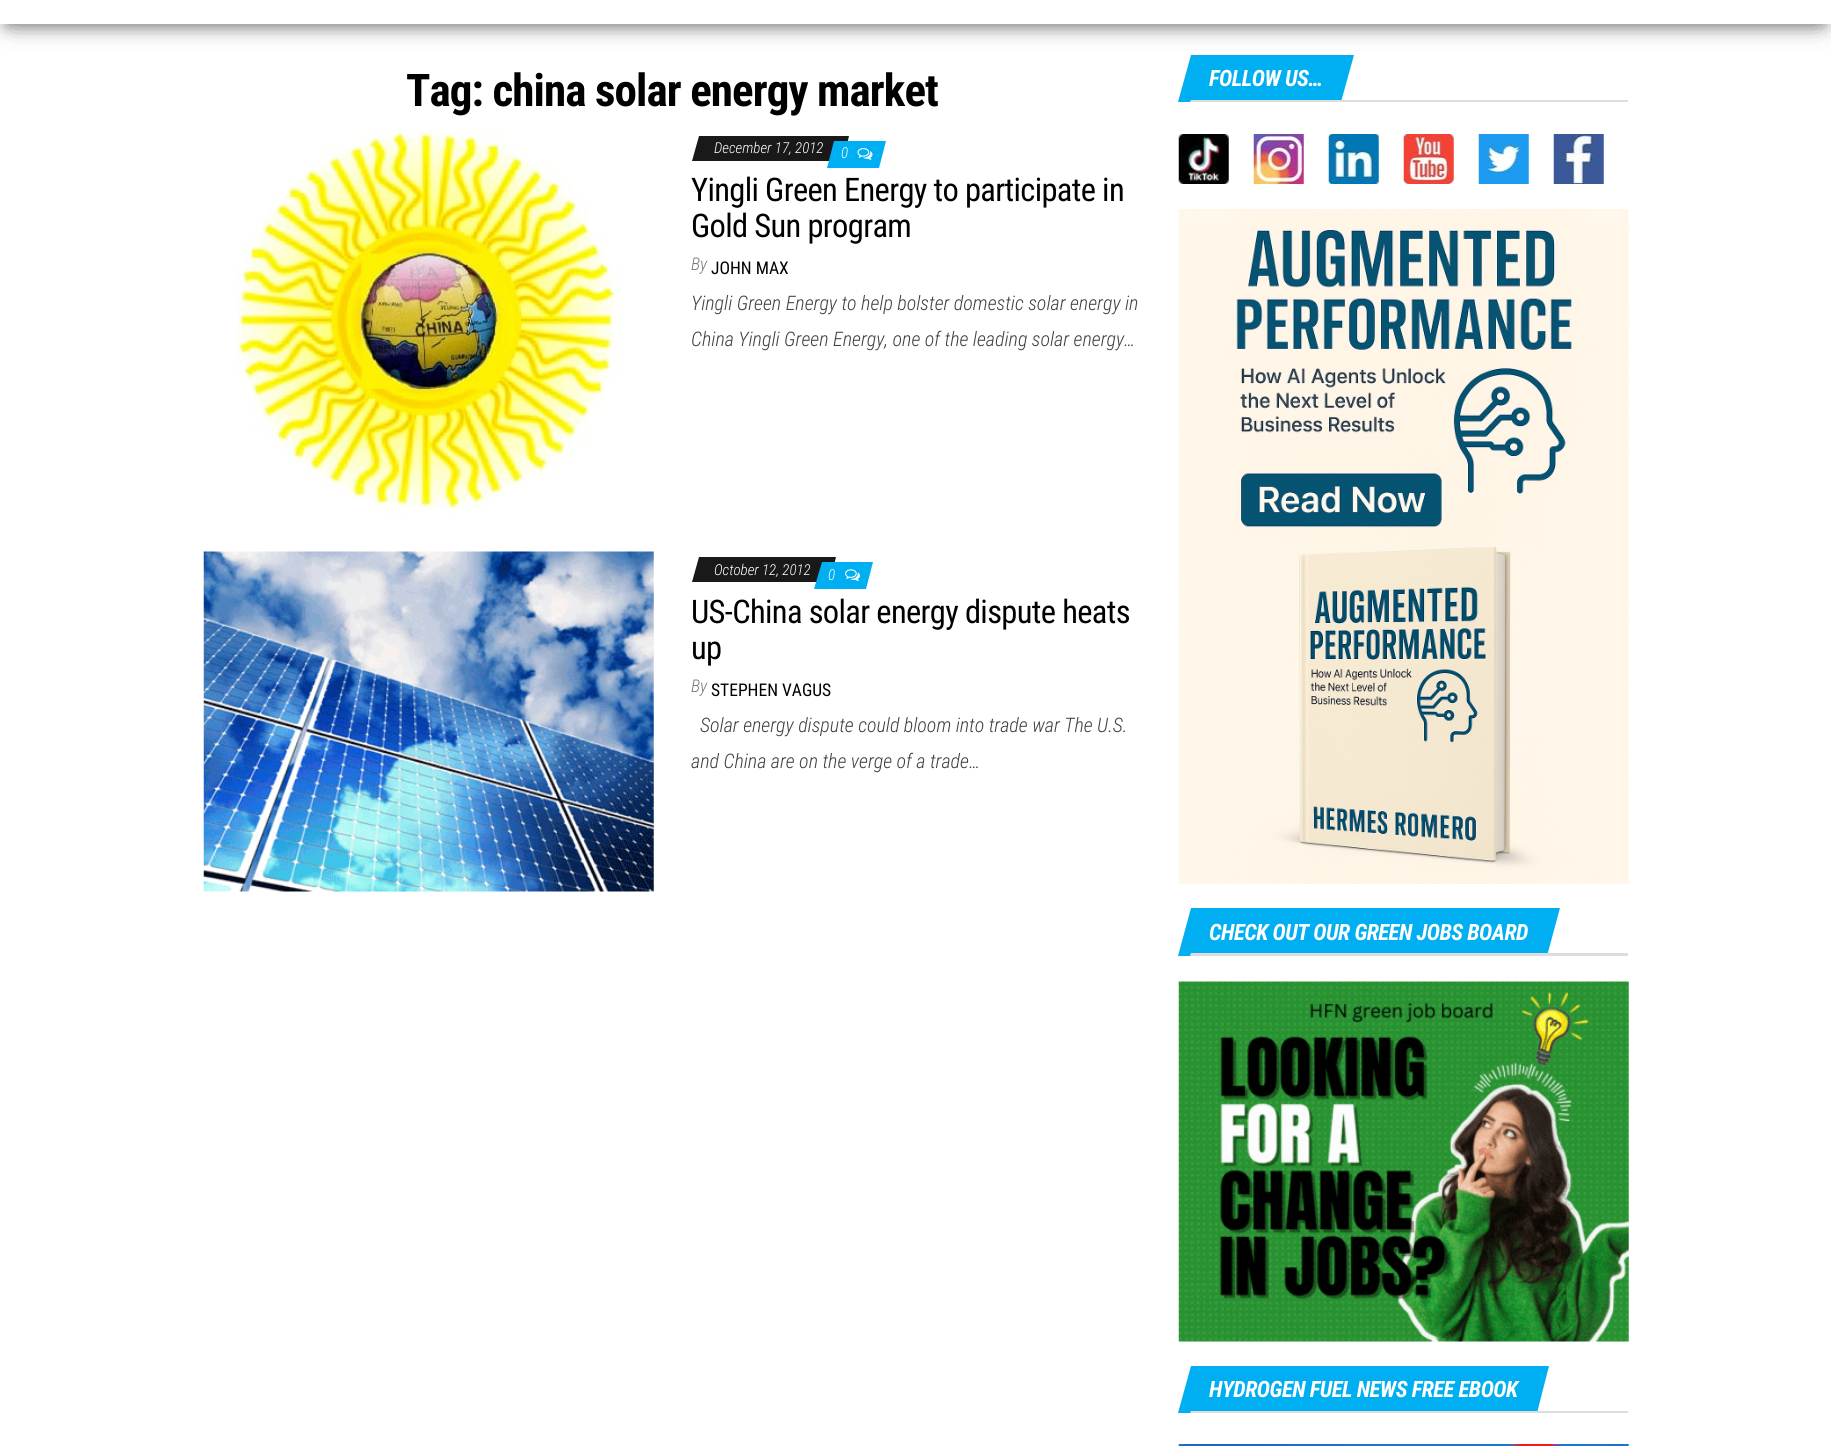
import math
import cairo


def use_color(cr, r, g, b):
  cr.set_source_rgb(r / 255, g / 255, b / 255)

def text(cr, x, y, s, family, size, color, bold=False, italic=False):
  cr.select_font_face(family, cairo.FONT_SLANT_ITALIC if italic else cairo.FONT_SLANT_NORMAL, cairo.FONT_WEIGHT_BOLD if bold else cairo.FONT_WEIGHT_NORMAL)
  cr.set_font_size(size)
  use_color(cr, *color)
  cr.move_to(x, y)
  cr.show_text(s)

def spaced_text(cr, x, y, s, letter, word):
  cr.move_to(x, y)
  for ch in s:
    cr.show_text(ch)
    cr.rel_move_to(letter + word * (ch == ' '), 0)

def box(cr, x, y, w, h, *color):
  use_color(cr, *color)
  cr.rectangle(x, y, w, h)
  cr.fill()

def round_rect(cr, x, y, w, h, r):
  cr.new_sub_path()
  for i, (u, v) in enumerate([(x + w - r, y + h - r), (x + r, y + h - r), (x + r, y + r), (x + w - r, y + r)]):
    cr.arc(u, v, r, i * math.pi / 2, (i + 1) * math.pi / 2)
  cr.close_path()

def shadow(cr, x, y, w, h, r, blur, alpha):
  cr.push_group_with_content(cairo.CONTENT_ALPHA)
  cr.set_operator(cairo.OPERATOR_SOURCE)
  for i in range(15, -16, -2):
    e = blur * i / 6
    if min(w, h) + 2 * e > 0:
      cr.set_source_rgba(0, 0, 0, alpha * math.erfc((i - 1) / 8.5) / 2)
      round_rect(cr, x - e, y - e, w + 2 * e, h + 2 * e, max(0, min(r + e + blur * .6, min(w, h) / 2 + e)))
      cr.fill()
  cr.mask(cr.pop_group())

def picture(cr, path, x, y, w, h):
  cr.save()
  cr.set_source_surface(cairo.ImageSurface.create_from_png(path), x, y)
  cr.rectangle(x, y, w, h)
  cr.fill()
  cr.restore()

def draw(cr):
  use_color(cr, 255, 255, 255)
  cr.paint()
  use_color(cr, 0, 0, 0)
  shadow(cr, 6, -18, 1819, 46, 0, 6, 0.2)
  shadow(cr, 0, -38, 1831, 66, 0, 12.5, 0.12)
  shadow(cr, 15, -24, 1801, 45, 0, 12.5, 0.42)
  box(cr, 0, 0, 1831, 24, 255, 255, 255)
  picture(cr, "img_01.png", 237, 130, 385, 384)
  use_color(cr, 25, 25, 25)
  cr.new_path()
  cr.move_to(699, 136)
  cr.line_to(849, 136)
  cr.line_to(843, 161)
  cr.line_to(692, 161)
  cr.close_path()
  cr.fill()
  use_color(cr, 0, 175, 242)
  cr.new_path()
  cr.move_to(834, 141)
  cr.line_to(886, 141)
  cr.line_to(879, 168)
  cr.line_to(827, 168)
  cr.close_path()
  cr.fill()
  picture(cr, "img_02.png", 857, 148, 16, 12)
  picture(cr, "img_03.png", 203, 551, 451, 341)
  use_color(cr, 25, 25, 25)
  cr.new_path()
  cr.move_to(699, 557)
  cr.line_to(836, 557)
  cr.line_to(830, 582)
  cr.line_to(692, 582)
  cr.close_path()
  cr.fill()
  use_color(cr, 0, 175, 242)
  cr.new_path()
  cr.move_to(822, 562)
  cr.line_to(873, 562)
  cr.line_to(866, 589)
  cr.line_to(814, 589)
  cr.close_path()
  cr.fill()
  picture(cr, "img_04.png", 845, 569, 15, 12)
  cr.new_path()
  cr.move_to(1191, 55)
  cr.line_to(1354, 55)
  cr.line_to(1341, 102)
  cr.line_to(1178, 102)
  cr.close_path()
  cr.fill()
  use_color(cr, 221, 221, 221)
  cr.new_path()
  cr.move_to(1191, 100)
  cr.line_to(1628, 100)
  cr.line_to(1628, 102)
  cr.line_to(1190, 102)
  cr.close_path()
  cr.fill()
  picture(cr, "img_05.png", 1178, 134, 51, 50)
  picture(cr, "img_06.png", 1253, 134, 51, 50)
  picture(cr, "img_07.png", 1328, 134, 51, 50)
  picture(cr, "img_08.png", 1403, 134, 51, 50)
  picture(cr, "img_09.png", 1478, 134, 51, 50)
  picture(cr, "img_10.png", 1553, 134, 51, 50)
  picture(cr, "img_11.png", 1178, 209, 451, 675)
  use_color(cr, 0, 175, 242)
  cr.new_path()
  cr.move_to(1191, 908)
  cr.line_to(1560, 908)
  cr.line_to(1547, 956)
  cr.line_to(1178, 956)
  cr.close_path()
  cr.fill()
  use_color(cr, 221, 221, 221)
  cr.new_path()
  cr.move_to(1191, 953)
  cr.line_to(1628, 953)
  cr.line_to(1628, 956)
  cr.line_to(1190, 956)
  cr.close_path()
  cr.fill()
  picture(cr, "img_12.png", 1178, 981, 451, 361)
  use_color(cr, 0, 175, 242)
  cr.new_path()
  cr.move_to(1191, 1366)
  cr.line_to(1549, 1366)
  cr.line_to(1537, 1413)
  cr.line_to(1178, 1413)
  cr.close_path()
  cr.fill()
  use_color(cr, 221, 221, 221)
  cr.new_path()
  cr.move_to(1191, 1411)
  cr.line_to(1628, 1411)
  cr.line_to(1628, 1413)
  cr.line_to(1190, 1413)
  cr.close_path()
  cr.fill()
  picture(cr, "img_13.png", 1178, 1444, 451, 2)
  cr.select_font_face("Roboto Condensed", cairo.FONT_SLANT_NORMAL, cairo.FONT_WEIGHT_BOLD)
  cr.set_font_size(45)
  use_color(cr, 0, 0, 0)
  spaced_text(cr, 406, 106, "Tag: china solar energy market", -0.9, 0)
  text(cr, 714, 153, "December 17, 2012", "Roboto Condensed Light", 15, (255, 255, 255), italic=True)
  text(cr, 841, 158, "0", "Roboto Condensed Light", 15, (255, 255, 255), italic=True)
  cr.select_font_face("Roboto Condensed")
  cr.set_font_size(32.5)
  use_color(cr, 0, 0, 0)
  spaced_text(cr, 691, 201, "Yingli Green Energy to participate in", -0.65, 0)
  spaced_text(cr, 691, 237, "Gold Sun program", -0.65, 0)
  text(cr, 691, 270, "By", "Roboto Condensed Light", 17.5, (121, 121, 121), italic=True)
  text(cr, 711, 274, "JOHN MAX", "Roboto Condensed", 17.5, (0, 0, 0))
  text(cr, 691, 310, "Yingli Green Energy to help bolster domestic solar energy in", "Roboto Condensed Light", 20, (64, 64, 64), italic=True)
  text(cr, 691, 346, "China Yingli Green Energy, one of the leading solar energy…", "Roboto Condensed Light", 20, (64, 64, 64), italic=True)
  text(cr, 714, 575, "October 12, 2012", "Roboto Condensed Light", 15, (255, 255, 255), italic=True)
  text(cr, 828, 580, "0", "Roboto Condensed Light", 15, (255, 255, 255), italic=True)
  cr.select_font_face("Roboto Condensed")
  cr.set_font_size(32.5)
  use_color(cr, 0, 0, 0)
  spaced_text(cr, 691, 623, "US-China solar energy dispute heats", -0.65, 0)
  spaced_text(cr, 691, 659, "up", -0.65, 0)
  text(cr, 691, 692, "By", "Roboto Condensed Light", 17.5, (121, 121, 121), italic=True)
  text(cr, 711, 696, "STEPHEN VAGUS", "Roboto Condensed", 17.5, (0, 0, 0))
  text(cr, 700, 732, "Solar energy dispute could bloom into trade war The U.S.", "Roboto Condensed Light", 20, (64, 64, 64), italic=True)
  text(cr, 691, 768, "and China are on the verge of a trade…", "Roboto Condensed Light", 20, (64, 64, 64), italic=True)
  cr.select_font_face("Roboto Condensed", cairo.FONT_SLANT_ITALIC, cairo.FONT_WEIGHT_BOLD)
  cr.set_font_size(22.5)
  use_color(cr, 255, 255, 255)
  spaced_text(cr, 1209, 86, "FOLLOW US…", -0.45, 0)
  spaced_text(cr, 1209, 940, "CHECK OUT OUR GREEN JOBS BOARD", -0.45, 0)
  spaced_text(cr, 1209, 1397, "HYDROGEN FUEL NEWS FREE EBOOK", -0.45, 0)


surface = cairo.ImageSurface(cairo.FORMAT_RGB24, 1831, 1446)
cr = cairo.Context(surface)
options = cairo.FontOptions()
options.set_hint_metrics(cairo.HINT_METRICS_OFF)
options.set_hint_style(cairo.HINT_STYLE_NONE)
cr.set_font_options(options)
cr.set_miter_limit(4)
draw(cr)
surface.write_to_png("out.png")
